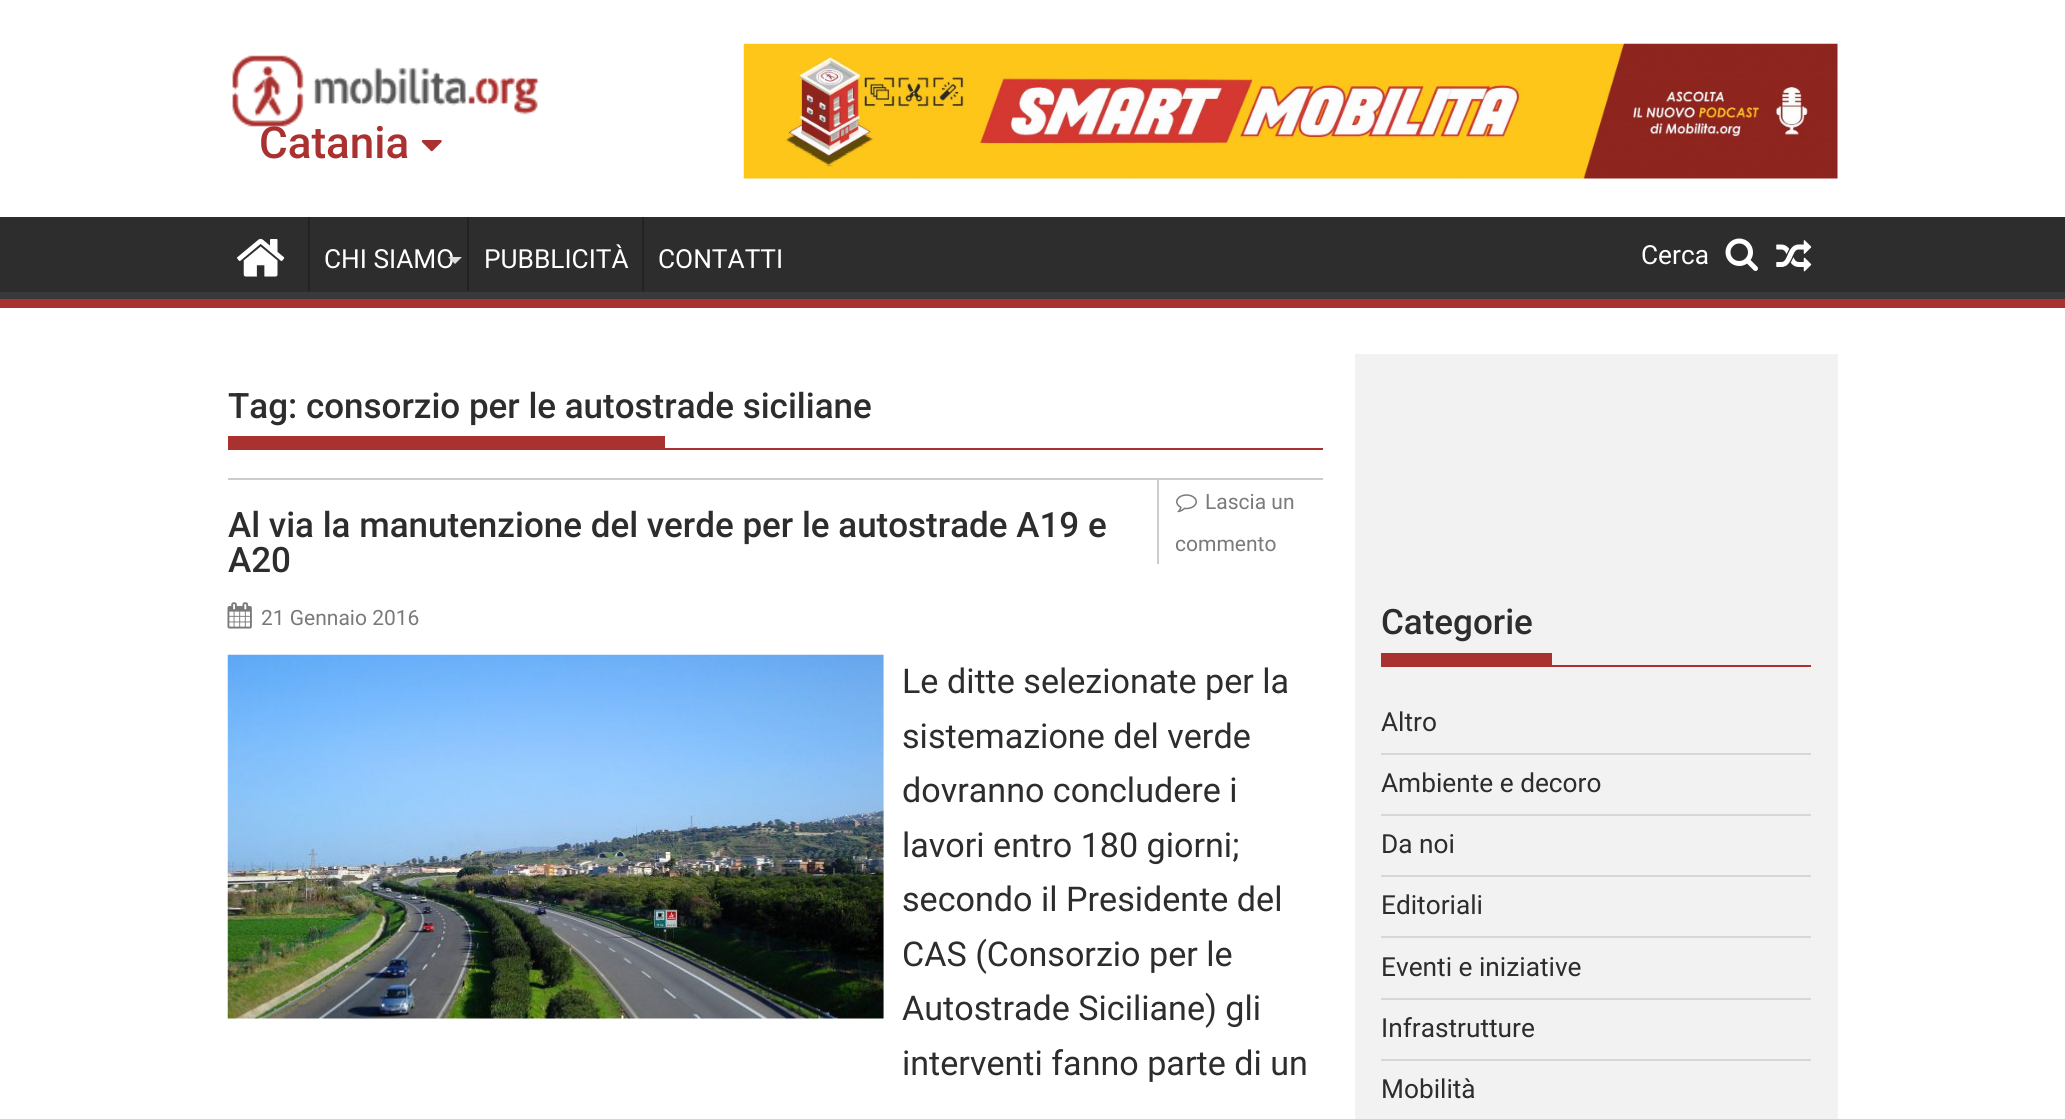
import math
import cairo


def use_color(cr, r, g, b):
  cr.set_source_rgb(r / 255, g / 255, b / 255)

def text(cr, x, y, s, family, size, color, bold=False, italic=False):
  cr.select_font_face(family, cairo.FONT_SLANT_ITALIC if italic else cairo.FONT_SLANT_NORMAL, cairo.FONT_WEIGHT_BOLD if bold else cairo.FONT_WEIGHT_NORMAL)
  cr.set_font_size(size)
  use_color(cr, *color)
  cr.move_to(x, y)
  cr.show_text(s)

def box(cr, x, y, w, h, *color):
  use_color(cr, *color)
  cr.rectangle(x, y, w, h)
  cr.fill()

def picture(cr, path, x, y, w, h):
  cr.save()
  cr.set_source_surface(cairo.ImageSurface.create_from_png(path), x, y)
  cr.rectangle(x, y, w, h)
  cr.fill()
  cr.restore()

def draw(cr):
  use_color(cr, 255, 255, 255)
  cr.paint()
  picture(cr, "img_01.png", 232, 55, 308, 72)
  picture(cr, "img_02.png", 421, 140, 21, 12)
  picture(cr, "img_03.png", 743, 43, 1095, 136)
  box(cr, 0, 217, 2065, 75, 45, 45, 45)
  cr.save()
  cr.rectangle(0, 217, 2065, 82)
  cr.clip()
  use_color(cr, 57, 57, 57)
  cr.set_fill_rule(cairo.FILL_RULE_EVEN_ODD)
  cr.new_path()
  cr.move_to(-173, 44)
  cr.line_to(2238, 44)
  cr.line_to(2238, 472)
  cr.line_to(-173, 472)
  cr.close_path()
  cr.move_to(-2, 206)
  cr.line_to(2063, 206)
  cr.curve_to(2064, 206, 2065, 207, 2065, 208)
  cr.line_to(2065, 290)
  cr.curve_to(2065, 291, 2064, 292, 2063, 292)
  cr.line_to(-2, 292)
  cr.curve_to(-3, 292, -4, 291, -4, 290)
  cr.line_to(-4, 208)
  cr.curve_to(-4, 207, -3, 206, -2, 206)
  cr.close_path()
  cr.fill()
  cr.restore()
  box(cr, 0, 299, 2065, 9, 169, 50, 48)
  picture(cr, "img_04.png", 237, 238, 48, 39)
  box(cr, 308, 217, 2, 74, 34, 34, 34)
  box(cr, 467, 217, 2, 74, 34, 34, 34)
  box(cr, 642, 217, 2, 74, 34, 34, 34)
  picture(cr, "img_05.png", 1725, 238, 33, 33)
  picture(cr, "img_06.png", 1776, 240, 36, 32)
  box(cr, 228, 448, 1095, 2, 169, 50, 48)
  box(cr, 228, 436, 437, 12, 169, 50, 48)
  box(cr, 228, 478, 1095, 2, 204, 204, 204)
  picture(cr, "img_07.png", 227, 602, 25, 27)
  box(cr, 1157, 480, 2, 84, 204, 204, 204)
  picture(cr, "img_08.png", 1176, 494, 21, 19)
  picture(cr, "img_09.png", 227, 654, 657, 365)
  box(cr, 1355, 354, 483, 765, 242, 242, 242)
  box(cr, 1381, 665, 430, 2, 169, 50, 48)
  box(cr, 1381, 653, 171, 12, 169, 50, 48)
  box(cr, 1381, 753, 430, 2, 215, 215, 215)
  box(cr, 1381, 814, 430, 2, 215, 215, 215)
  box(cr, 1381, 875, 430, 2, 215, 215, 215)
  box(cr, 1381, 936, 430, 2, 215, 215, 215)
  box(cr, 1381, 998, 430, 2, 215, 215, 215)
  box(cr, 1381, 1059, 430, 2, 215, 215, 215)
  text(cr, 259, 158, "Catania", "Roboto Medium", 44, (169, 50, 48))
  text(cr, 324, 268, "CHI SIAMO", "Roboto", 26.25, (255, 255, 255))
  use_color(cr, 221, 221, 221)
  cr.new_path()
  cr.move_to(448, 257)
  cr.line_to(462, 257)
  cr.line_to(455, 264)
  cr.close_path()
  cr.fill()
  text(cr, 484, 268, "PUBBLICITÀ", "Roboto", 26.25, (255, 255, 255))
  text(cr, 658, 268, "CONTATTI", "Roboto", 26.25, (255, 255, 255))
  text(cr, 1641, 264, "Cerca", "Roboto", 26.25, (255, 255, 255))
  text(cr, 228, 418, "Tag: consorzio per le autostrade siciliane", "Roboto Medium", 35, (45, 45, 45))
  text(cr, 228, 537, "Al via la manutenzione del verde per le autostrade A19 e", "Roboto Medium", 35, (45, 45, 45))
  text(cr, 228, 572, "A20", "Roboto Medium", 35, (45, 45, 45))
  text(cr, 261, 625, "21 Gennaio 2016", "Roboto", 21, (122, 122, 122))
  text(cr, 1205, 509, "Lascia un", "Roboto", 21, (122, 122, 122))
  text(cr, 1175, 551, "commento", "Roboto", 21, (122, 122, 122))
  text(cr, 902, 693, "Le ditte selezionate per la", "Roboto", 34.1, (45, 45, 45))
  text(cr, 902, 748, "sistemazione del verde", "Roboto", 34.1, (45, 45, 45))
  text(cr, 902, 802, "dovranno concludere i", "Roboto", 34.1, (45, 45, 45))
  text(cr, 902, 857, "lavori entro 180 giorni;", "Roboto", 34.1, (45, 45, 45))
  text(cr, 902, 911, "secondo il Presidente del", "Roboto", 34.1, (45, 45, 45))
  text(cr, 902, 966, "CAS (Consorzio per le", "Roboto", 34.1, (45, 45, 45))
  text(cr, 902, 1020, "Autostrade Siciliane) gli", "Roboto", 34.1, (45, 45, 45))
  text(cr, 902, 1075, "interventi fanno parte di un", "Roboto", 34.1, (45, 45, 45))
  text(cr, 1381, 634, "Categorie", "Roboto Medium", 35, (45, 45, 45))
  text(cr, 1381, 731, "Altro", "Roboto", 26.25, (45, 45, 45))
  text(cr, 1381, 792, "Ambiente e decoro", "Roboto", 26.25, (45, 45, 45))
  text(cr, 1381, 853, "Da noi", "Roboto", 26.25, (45, 45, 45))
  text(cr, 1381, 914, "Editoriali", "Roboto", 26.25, (45, 45, 45))
  text(cr, 1381, 976, "Eventi e iniziative", "Roboto", 26.25, (45, 45, 45))
  text(cr, 1381, 1037, "Infrastrutture", "Roboto", 26.25, (45, 45, 45))
  text(cr, 1381, 1098, "Mobilità", "Roboto", 26.25, (45, 45, 45))


surface = cairo.ImageSurface(cairo.FORMAT_RGB24, 2065, 1119)
cr = cairo.Context(surface)
options = cairo.FontOptions()
options.set_hint_metrics(cairo.HINT_METRICS_OFF)
options.set_hint_style(cairo.HINT_STYLE_NONE)
cr.set_font_options(options)
cr.set_miter_limit(4)
draw(cr)
surface.write_to_png("out.png")
